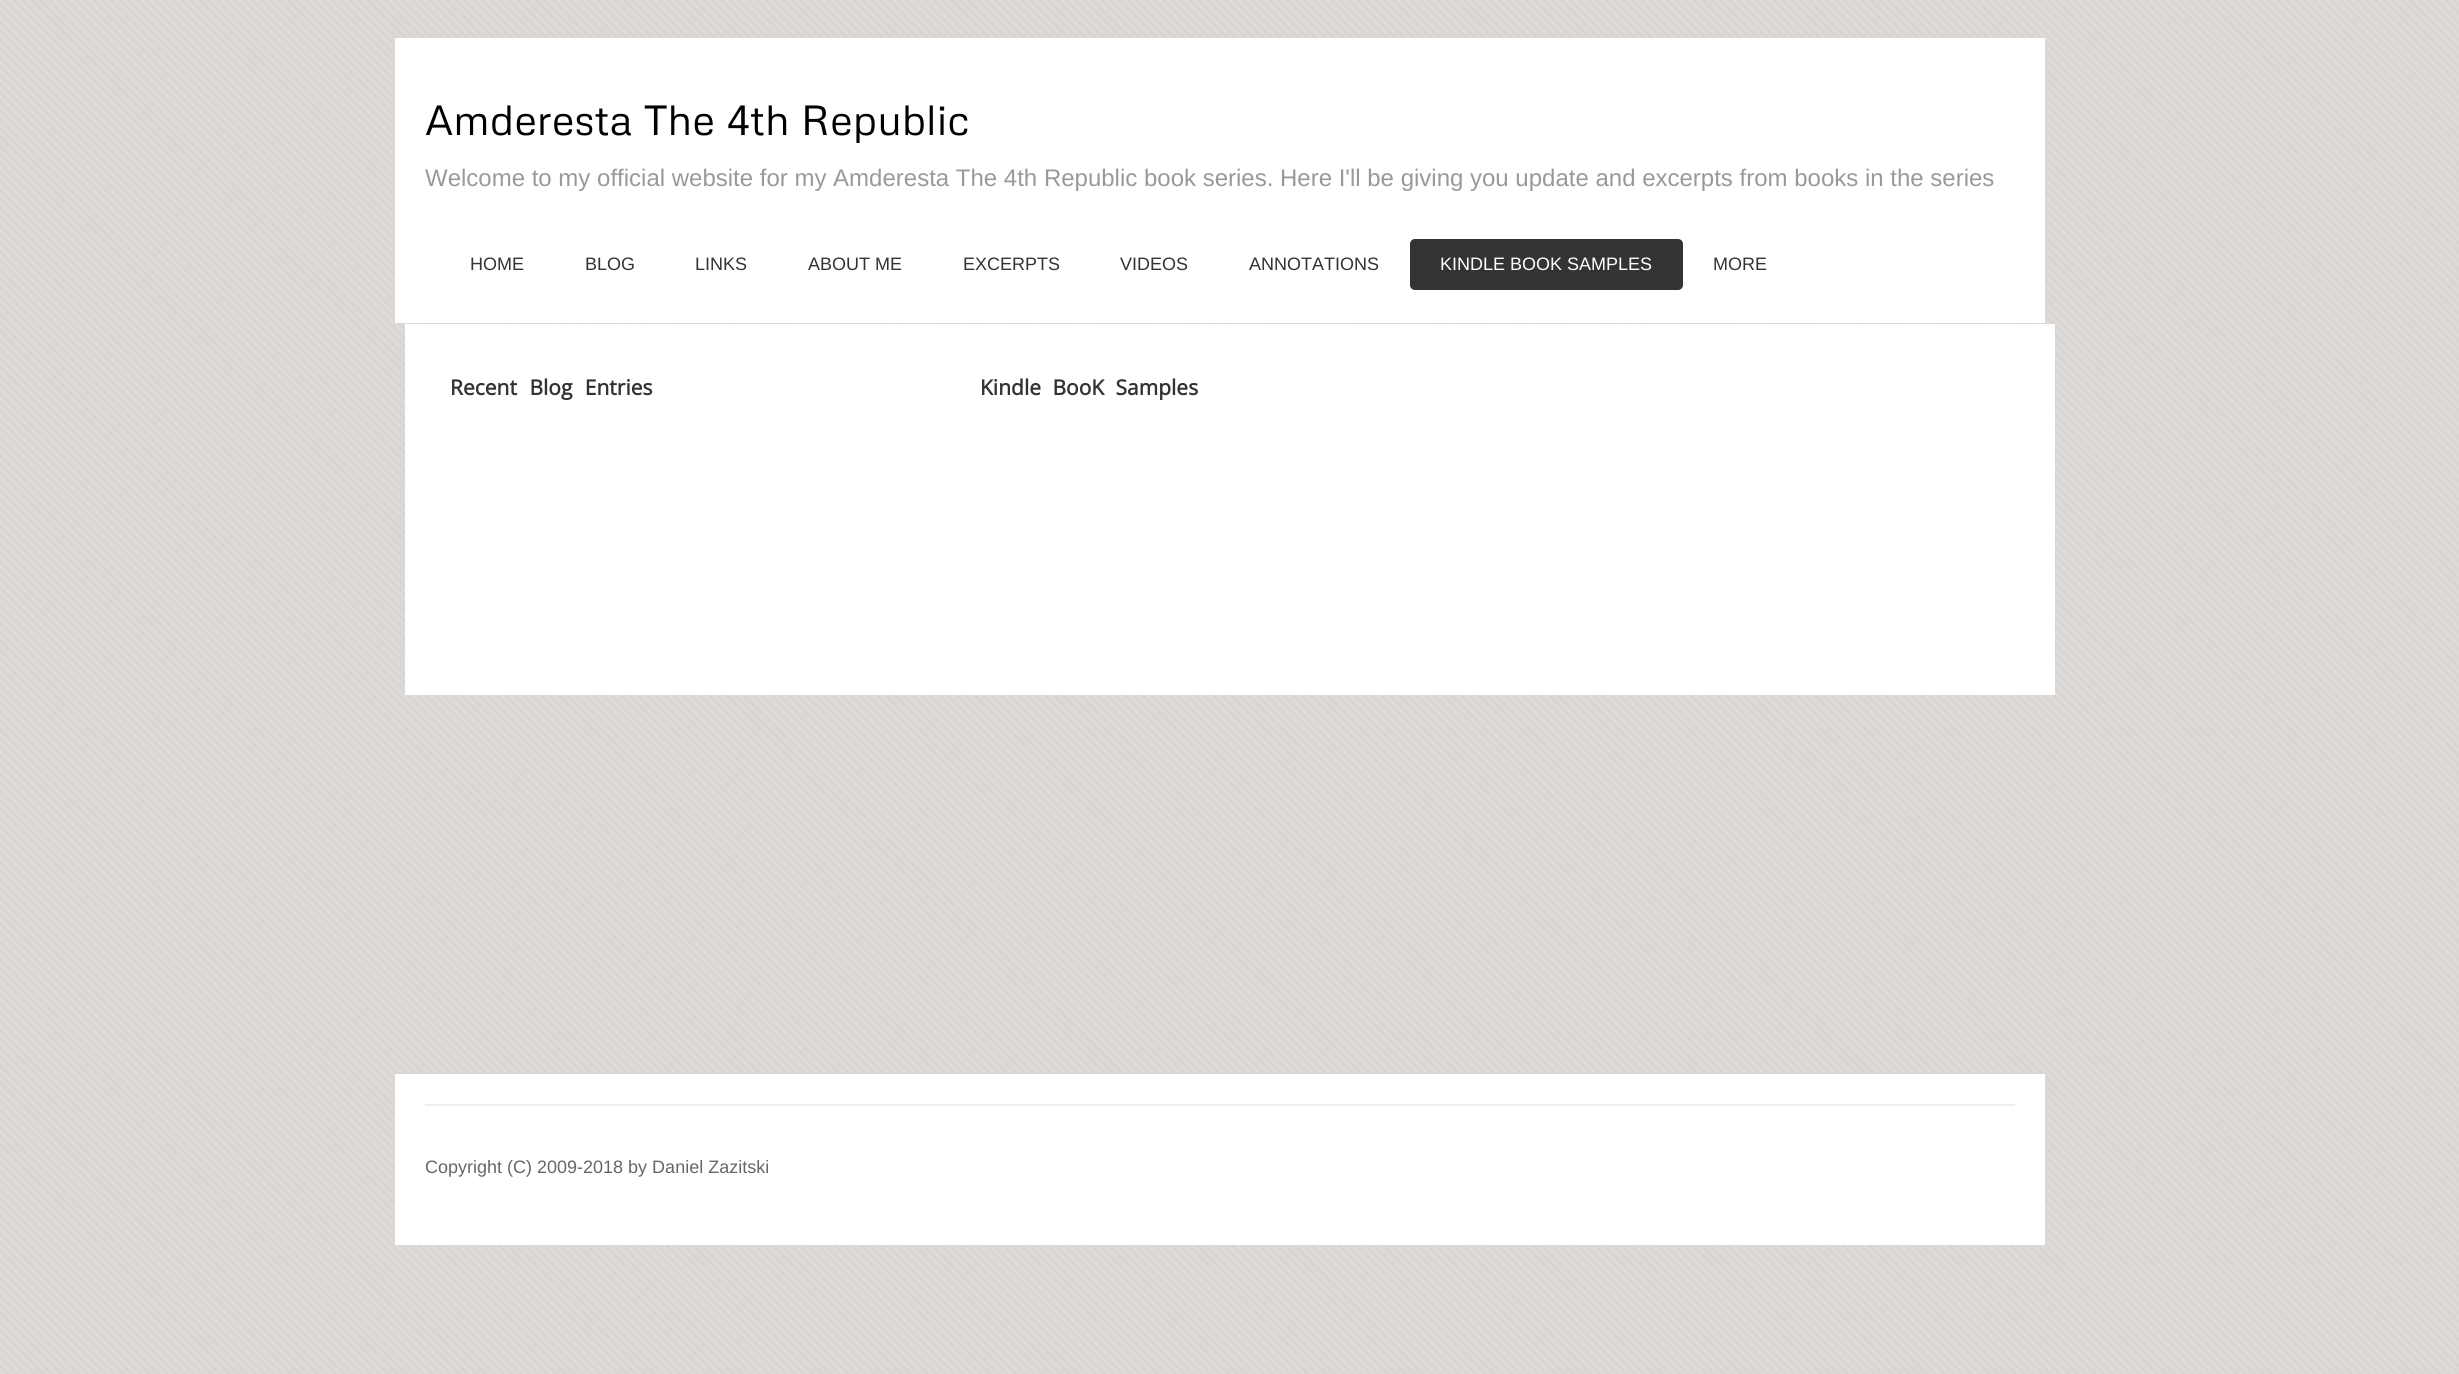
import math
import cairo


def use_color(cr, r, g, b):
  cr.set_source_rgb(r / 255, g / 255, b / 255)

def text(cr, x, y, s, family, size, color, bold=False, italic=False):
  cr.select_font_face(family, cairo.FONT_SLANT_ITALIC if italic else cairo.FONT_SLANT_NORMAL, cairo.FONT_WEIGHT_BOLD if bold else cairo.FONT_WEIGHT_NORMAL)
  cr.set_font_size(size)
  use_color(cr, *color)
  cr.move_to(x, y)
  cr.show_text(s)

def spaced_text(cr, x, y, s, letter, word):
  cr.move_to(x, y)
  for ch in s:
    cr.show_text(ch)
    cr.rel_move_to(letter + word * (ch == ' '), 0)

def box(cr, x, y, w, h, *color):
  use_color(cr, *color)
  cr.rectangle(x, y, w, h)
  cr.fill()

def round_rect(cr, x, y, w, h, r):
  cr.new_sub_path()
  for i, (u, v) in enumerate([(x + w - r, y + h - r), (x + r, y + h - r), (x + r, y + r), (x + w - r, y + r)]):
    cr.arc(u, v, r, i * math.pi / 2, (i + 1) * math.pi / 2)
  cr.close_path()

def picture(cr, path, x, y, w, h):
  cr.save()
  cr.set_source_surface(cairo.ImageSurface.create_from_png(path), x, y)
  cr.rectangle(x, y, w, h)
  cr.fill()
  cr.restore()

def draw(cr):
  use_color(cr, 255, 255, 255)
  cr.paint()
  picture(cr, "img_01.png", 0, 0, 2459, 1374)
  box(cr, 395, 38, 1650, 285, 255, 255, 255)
  use_color(cr, 51, 51, 51)
  round_rect(cr, 1410, 239, 273, 51, 5)
  cr.fill()
  box(cr, 405, 324, 1650, 371, 255, 255, 255)
  box(cr, 395, 1074, 1650, 171, 255, 255, 255)
  box(cr, 425, 1104, 1590, 2, 238, 238, 238)
  text(cr, 425, 135, "Amderesta The 4th Republic", "Metrophobic", 42, (0, 0, 0))
  text(cr, 425, 186, "Welcome to my official website for my Amderesta The 4th Republic book series. Here I'll be giving you update and excerpts from books in the series", "Liberation Sans", 24, (153, 153, 153))
  text(cr, 470, 270, "HOME", "Liberation Sans", 18, (51, 51, 51))
  text(cr, 585, 270, "BLOG", "Liberation Sans", 18, (51, 51, 51))
  text(cr, 695, 270, "LINKS", "Liberation Sans", 18, (51, 51, 51))
  text(cr, 808, 270, "ABOUT ME", "Liberation Sans", 18, (51, 51, 51))
  text(cr, 963, 270, "EXCERPTS", "Liberation Sans", 18, (51, 51, 51))
  text(cr, 1120, 270, "VIDEOS", "Liberation Sans", 18, (51, 51, 51))
  text(cr, 1249, 270, "ANNOTATIONS", "Liberation Sans", 18, (51, 51, 51))
  text(cr, 1440, 270, "KINDLE BOOK SAMPLES", "Liberation Sans", 18, (255, 255, 255))
  text(cr, 1713, 270, "MORE", "Liberation Sans", 18, (51, 51, 51))
  cr.select_font_face("Open Sans", cairo.FONT_SLANT_NORMAL, cairo.FONT_WEIGHT_BOLD)
  cr.set_font_size(21)
  spaced_text(cr, 450, 395, "Recent Blog Entries", 0, 7)
  spaced_text(cr, 980, 395, "Kindle BooK Samples", 0, 6)
  text(cr, 425, 1173, "Copyright (C) 2009-2018 by Daniel Zazitski", "Liberation Sans", 18, (102, 102, 102))


surface = cairo.ImageSurface(cairo.FORMAT_RGB24, 2459, 1374)
cr = cairo.Context(surface)
options = cairo.FontOptions()
options.set_hint_metrics(cairo.HINT_METRICS_OFF)
options.set_hint_style(cairo.HINT_STYLE_NONE)
cr.set_font_options(options)
cr.set_miter_limit(4)
draw(cr)
surface.write_to_png("out.png")
